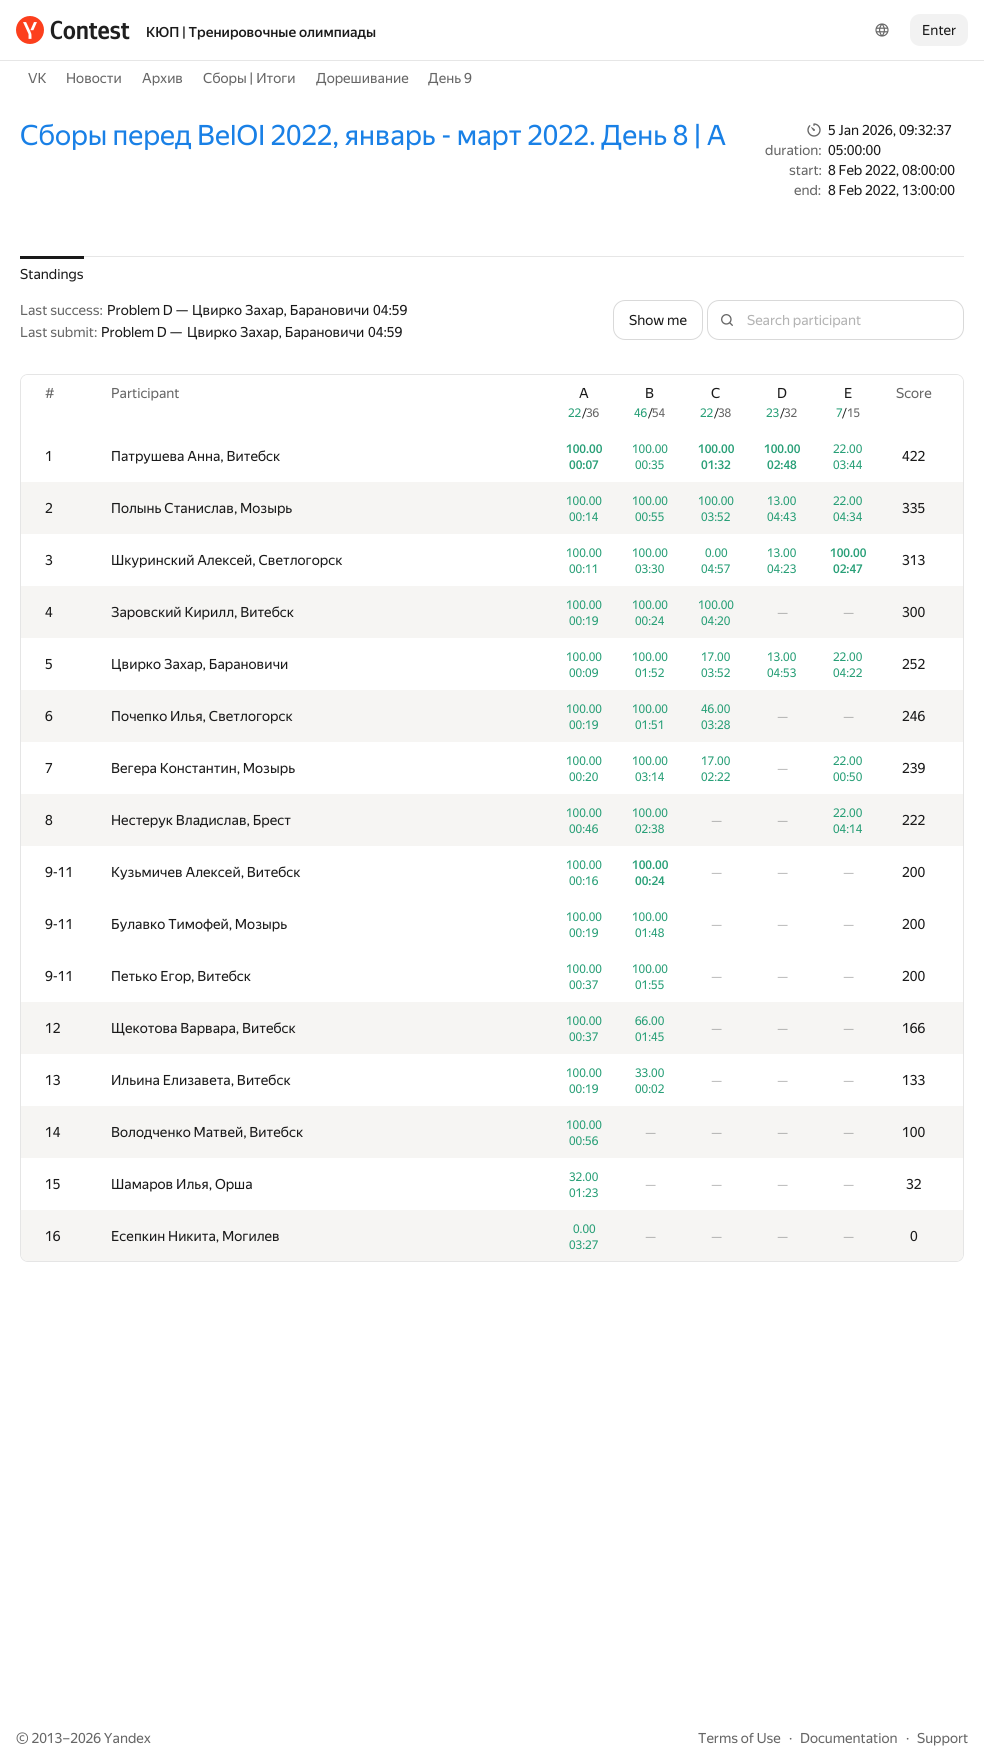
import math
import cairo


def use_color(cr, r, g, b):
  cr.set_source_rgb(r / 255, g / 255, b / 255)

def text(cr, x, y, s, family, size, color, bold=False, italic=False):
  cr.select_font_face(family, cairo.FONT_SLANT_ITALIC if italic else cairo.FONT_SLANT_NORMAL, cairo.FONT_WEIGHT_BOLD if bold else cairo.FONT_WEIGHT_NORMAL)
  cr.set_font_size(size)
  use_color(cr, *color)
  cr.move_to(x, y)
  cr.show_text(s)

def spaced_text(cr, x, y, s, letter, word):
  cr.move_to(x, y)
  for ch in s:
    cr.show_text(ch)
    cr.rel_move_to(letter + word * (ch == ' '), 0)

def box(cr, x, y, w, h, *color):
  use_color(cr, *color)
  cr.rectangle(x, y, w, h)
  cr.fill()

def round_rect(cr, x, y, w, h, r):
  cr.new_sub_path()
  for i, (u, v) in enumerate([(x + w - r, y + h - r), (x + r, y + h - r), (x + r, y + r), (x + w - r, y + r)]):
    cr.arc(u, v, r, i * math.pi / 2, (i + 1) * math.pi / 2)
  cr.close_path()

def picture(cr, path, x, y, w, h):
  cr.save()
  cr.set_source_surface(cairo.ImageSurface.create_from_png(path), x, y)
  cr.rectangle(x, y, w, h)
  cr.fill()
  cr.restore()

def draw(cr):
  use_color(cr, 255, 255, 255)
  cr.paint()
  box(cr, 20, 257, 64, 2, 25, 25, 25)
  picture(cr, "img_01.png", 16, 16, 114, 28)
  picture(cr, "img_02.png", 875, 23, 14, 14)
  use_color(cr, 242, 242, 242)
  round_rect(cr, 910, 14, 58, 32, 10)
  cr.fill()
  box(cr, 0, 60, 984, 1, 230, 230, 230)
  picture(cr, "img_03.png", 807, 123, 14, 14)
  box(cr, 84, 256, 880, 1, 230, 230, 230)
  box(cr, 20, 256, 64, 1, 23, 23, 23)
  round_rect(cr, 613.5, 300.5, 89, 39, 11.5)
  use_color(cr, 217, 217, 217)
  cr.set_line_width(1)
  cr.stroke()
  round_rect(cr, 707.5, 300.5, 256, 39, 11.5)
  cr.stroke()
  picture(cr, "img_04.png", 721, 314, 12, 12)
  round_rect(cr, 20.5, 374.5, 943, 887, 7.5)
  use_color(cr, 229, 229, 229)
  cr.stroke()
  use_color(cr, 255, 255, 255)
  cr.new_path()
  cr.move_to(28, 375)
  cr.line_to(103, 375)
  cr.line_to(103, 430)
  cr.line_to(21, 430)
  cr.line_to(21, 382)
  cr.curve_to(21, 378, 24, 375, 28, 375)
  cr.close_path()
  cr.fill()
  cr.new_path()
  cr.move_to(881, 375)
  cr.line_to(956, 375)
  cr.curve_to(960, 375, 963, 378, 963, 382)
  cr.line_to(963, 430)
  cr.line_to(881, 430)
  cr.close_path()
  cr.fill()
  box(cr, 21, 482, 942, 52, 246, 245, 243)
  box(cr, 21, 586, 942, 52, 246, 245, 243)
  box(cr, 21, 690, 942, 52, 246, 245, 243)
  box(cr, 21, 794, 942, 52, 246, 245, 243)
  box(cr, 21, 1002, 942, 52, 246, 245, 243)
  box(cr, 21, 1106, 942, 52, 246, 245, 243)
  cr.new_path()
  cr.move_to(21, 1210)
  cr.line_to(103, 1210)
  cr.line_to(103, 1261)
  cr.line_to(28, 1261)
  cr.curve_to(24, 1261, 21, 1258, 21, 1254)
  cr.close_path()
  cr.fill()
  box(cr, 103, 1210, 778, 51, 246, 245, 243)
  cr.new_path()
  cr.move_to(881, 1210)
  cr.line_to(963, 1210)
  cr.line_to(963, 1254)
  cr.curve_to(963, 1258, 960, 1261, 956, 1261)
  cr.line_to(881, 1261)
  cr.close_path()
  cr.fill()
  text(cr, 146, 37, "КЮП | Тренировочные олимпиады", "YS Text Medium", 14, (26, 26, 26))
  text(cr, 922, 35, "Enter", "YS Text", 14, (26, 26, 26))
  text(cr, 28, 83, "VK", "YS Text", 14, (102, 102, 102))
  text(cr, 66, 83, "Новости", "YS Text", 14, (102, 102, 102))
  text(cr, 142, 83, "Архив", "YS Text", 14, (102, 102, 102))
  text(cr, 203, 83, "Сборы | Итоги", "YS Text", 14, (102, 102, 102))
  text(cr, 316, 83, "Дорешивание", "YS Text", 14, (102, 102, 102))
  text(cr, 428, 83, "День 9", "YS Text", 14, (102, 102, 102))
  cr.set_font_size(28)
  use_color(cr, 25, 128, 230)
  spaced_text(cr, 20, 145, "Сборы перед BelOI 2022, январь - март 2022. День 8 | A", 0, -0.25)
  text(cr, 828, 135, "5 Jan 2026, 09:32:37", "YS Text", 14, (26, 26, 26))
  text(cr, 765, 155, "duration:", "YS Text", 14, (102, 102, 102))
  text(cr, 828, 155, "05:00:00", "YS Text", 14, (26, 26, 26))
  text(cr, 789, 175, "start:", "YS Text", 14, (102, 102, 102))
  text(cr, 828, 175, "8 Feb 2022, 08:00:00", "YS Text", 14, (26, 26, 26))
  text(cr, 794, 195, "end:", "YS Text", 14, (102, 102, 102))
  text(cr, 828, 195, "8 Feb 2022, 13:00:00", "YS Text", 14, (26, 26, 26))
  text(cr, 20, 279, "Standings", "YS Text", 14, (26, 26, 26))
  text(cr, 20, 315, "Last success:", "YS Text", 14, (102, 102, 102))
  text(cr, 107, 315, "Problem D —", "YS Text", 14, (26, 26, 26))
  text(cr, 192, 315, "Цвирко Захар, Барановичи", "YS Text", 14, (26, 26, 26))
  text(cr, 373, 315, "04:59", "YS Text", 14, (26, 26, 26))
  text(cr, 20, 337, "Last submit:", "YS Text", 14, (102, 102, 102))
  text(cr, 101, 337, "Problem D —", "YS Text", 14, (26, 26, 26))
  text(cr, 187, 337, "Цвирко Захар, Барановичи", "YS Text", 14, (26, 26, 26))
  text(cr, 368, 337, "04:59", "YS Text", 14, (26, 26, 26))
  text(cr, 629, 325, "Show me", "YS Text", 14, (26, 26, 26))
  text(cr, 747, 325, "Search participant", "YS Text", 14, (179, 179, 179))
  text(cr, 45, 398, "#", "YS Text", 14, (102, 102, 102))
  text(cr, 111, 398, "Participant", "YS Text", 14, (102, 102, 102))
  text(cr, 579, 398, "A", "YS Text", 14, (26, 26, 26))
  text(cr, 568, 417, "22", "YS Text", 12, (40, 159, 119))
  text(cr, 582, 417, "/", "YS Text", 12, (26, 26, 26))
  text(cr, 586, 417, "36", "YS Text", 12, (102, 102, 102))
  text(cr, 645, 398, "B", "YS Text", 14, (26, 26, 26))
  text(cr, 634, 417, "46", "YS Text", 12, (40, 159, 119))
  text(cr, 648, 417, "/", "YS Text", 12, (26, 26, 26))
  text(cr, 652, 417, "54", "YS Text", 12, (102, 102, 102))
  text(cr, 711, 398, "C", "YS Text", 14, (26, 26, 26))
  text(cr, 700, 417, "22", "YS Text", 12, (40, 159, 119))
  text(cr, 714, 417, "/", "YS Text", 12, (26, 26, 26))
  text(cr, 718, 417, "38", "YS Text", 12, (102, 102, 102))
  text(cr, 777, 398, "D", "YS Text", 14, (26, 26, 26))
  text(cr, 766, 417, "23", "YS Text", 12, (40, 159, 119))
  text(cr, 780, 417, "/", "YS Text", 12, (26, 26, 26))
  text(cr, 784, 417, "32", "YS Text", 12, (102, 102, 102))
  text(cr, 844, 398, "E", "YS Text", 14, (26, 26, 26))
  text(cr, 836, 417, "7", "YS Text", 12, (40, 159, 119))
  text(cr, 842, 417, "/", "YS Text", 12, (26, 26, 26))
  text(cr, 847, 417, "15", "YS Text", 12, (102, 102, 102))
  text(cr, 896, 398, "Score", "YS Text", 14, (102, 102, 102))
  text(cr, 45, 461, "1", "YS Text", 14, (26, 26, 26))
  text(cr, 111, 461, "Патрушева Анна, Витебск", "YS Text", 14, (26, 26, 26))
  text(cr, 566, 453, "100.00", "YS Text Medium", 12, (40, 159, 119))
  text(cr, 569, 469, "00:07", "YS Text Medium", 12, (40, 159, 119))
  text(cr, 632, 453, "100.00", "YS Text", 12, (40, 159, 119))
  text(cr, 635, 469, "00:35", "YS Text", 12, (40, 159, 119))
  text(cr, 698, 453, "100.00", "YS Text Medium", 12, (40, 159, 119))
  text(cr, 701, 469, "01:32", "YS Text Medium", 12, (40, 159, 119))
  text(cr, 764, 453, "100.00", "YS Text Medium", 12, (40, 159, 119))
  text(cr, 767, 469, "02:48", "YS Text Medium", 12, (40, 159, 119))
  text(cr, 833, 453, "22.00", "YS Text", 12, (40, 159, 119))
  text(cr, 833, 469, "03:44", "YS Text", 12, (40, 159, 119))
  text(cr, 902, 461, "422", "YS Text", 14, (26, 26, 26))
  text(cr, 45, 513, "2", "YS Text", 14, (26, 26, 26))
  text(cr, 111, 513, "Полынь Станислав, Мозырь", "YS Text", 14, (26, 26, 26))
  text(cr, 566, 505, "100.00", "YS Text", 12, (40, 159, 119))
  text(cr, 569, 521, "00:14", "YS Text", 12, (40, 159, 119))
  text(cr, 632, 505, "100.00", "YS Text", 12, (40, 159, 119))
  text(cr, 635, 521, "00:55", "YS Text", 12, (40, 159, 119))
  text(cr, 698, 505, "100.00", "YS Text", 12, (40, 159, 119))
  text(cr, 701, 521, "03:52", "YS Text", 12, (40, 159, 119))
  text(cr, 767, 505, "13.00", "YS Text", 12, (40, 159, 119))
  text(cr, 767, 521, "04:43", "YS Text", 12, (40, 159, 119))
  text(cr, 833, 505, "22.00", "YS Text", 12, (40, 159, 119))
  text(cr, 833, 521, "04:34", "YS Text", 12, (40, 159, 119))
  text(cr, 902, 513, "335", "YS Text", 14, (26, 26, 26))
  text(cr, 45, 565, "3", "YS Text", 14, (26, 26, 26))
  text(cr, 111, 565, "Шкуринский Алексей, Светлогорск", "YS Text", 14, (26, 26, 26))
  text(cr, 566, 557, "100.00", "YS Text", 12, (40, 159, 119))
  text(cr, 569, 573, "00:11", "YS Text", 12, (40, 159, 119))
  text(cr, 632, 557, "100.00", "YS Text", 12, (40, 159, 119))
  text(cr, 635, 573, "03:30", "YS Text", 12, (40, 159, 119))
  text(cr, 705, 557, "0.00", "YS Text", 12, (40, 159, 119))
  text(cr, 701, 573, "04:57", "YS Text", 12, (40, 159, 119))
  text(cr, 767, 557, "13.00", "YS Text", 12, (40, 159, 119))
  text(cr, 767, 573, "04:23", "YS Text", 12, (40, 159, 119))
  text(cr, 830, 557, "100.00", "YS Text Medium", 12, (40, 159, 119))
  text(cr, 833, 573, "02:47", "YS Text Medium", 12, (40, 159, 119))
  text(cr, 902, 565, "313", "YS Text", 14, (26, 26, 26))
  text(cr, 45, 617, "4", "YS Text", 14, (26, 26, 26))
  text(cr, 111, 617, "Заровский Кирилл, Витебск", "YS Text", 14, (26, 26, 26))
  text(cr, 566, 609, "100.00", "YS Text", 12, (40, 159, 119))
  text(cr, 569, 625, "00:19", "YS Text", 12, (40, 159, 119))
  text(cr, 632, 609, "100.00", "YS Text", 12, (40, 159, 119))
  text(cr, 635, 625, "00:24", "YS Text", 12, (40, 159, 119))
  text(cr, 698, 609, "100.00", "YS Text", 12, (40, 159, 119))
  text(cr, 701, 625, "04:20", "YS Text", 12, (40, 159, 119))
  text(cr, 777, 617, "—", "YS Text", 12, (172, 172, 170))
  text(cr, 843, 617, "—", "YS Text", 12, (172, 172, 170))
  text(cr, 902, 617, "300", "YS Text", 14, (26, 26, 26))
  text(cr, 45, 669, "5", "YS Text", 14, (26, 26, 26))
  text(cr, 111, 669, "Цвирко Захар, Барановичи", "YS Text", 14, (26, 26, 26))
  text(cr, 566, 661, "100.00", "YS Text", 12, (40, 159, 119))
  text(cr, 569, 677, "00:09", "YS Text", 12, (40, 159, 119))
  text(cr, 632, 661, "100.00", "YS Text", 12, (40, 159, 119))
  text(cr, 635, 677, "01:52", "YS Text", 12, (40, 159, 119))
  text(cr, 701, 661, "17.00", "YS Text", 12, (40, 159, 119))
  text(cr, 701, 677, "03:52", "YS Text", 12, (40, 159, 119))
  text(cr, 767, 661, "13.00", "YS Text", 12, (40, 159, 119))
  text(cr, 767, 677, "04:53", "YS Text", 12, (40, 159, 119))
  text(cr, 833, 661, "22.00", "YS Text", 12, (40, 159, 119))
  text(cr, 833, 677, "04:22", "YS Text", 12, (40, 159, 119))
  text(cr, 902, 669, "252", "YS Text", 14, (26, 26, 26))
  text(cr, 45, 721, "6", "YS Text", 14, (26, 26, 26))
  text(cr, 111, 721, "Почепко Илья, Светлогорск", "YS Text", 14, (26, 26, 26))
  text(cr, 566, 713, "100.00", "YS Text", 12, (40, 159, 119))
  text(cr, 569, 729, "00:19", "YS Text", 12, (40, 159, 119))
  text(cr, 632, 713, "100.00", "YS Text", 12, (40, 159, 119))
  text(cr, 635, 729, "01:51", "YS Text", 12, (40, 159, 119))
  text(cr, 701, 713, "46.00", "YS Text", 12, (40, 159, 119))
  text(cr, 701, 729, "03:28", "YS Text", 12, (40, 159, 119))
  text(cr, 777, 721, "—", "YS Text", 12, (172, 172, 170))
  text(cr, 843, 721, "—", "YS Text", 12, (172, 172, 170))
  text(cr, 902, 721, "246", "YS Text", 14, (26, 26, 26))
  text(cr, 45, 773, "7", "YS Text", 14, (26, 26, 26))
  text(cr, 111, 773, "Вегера Константин, Мозырь", "YS Text", 14, (26, 26, 26))
  text(cr, 566, 765, "100.00", "YS Text", 12, (40, 159, 119))
  text(cr, 569, 781, "00:20", "YS Text", 12, (40, 159, 119))
  text(cr, 632, 765, "100.00", "YS Text", 12, (40, 159, 119))
  text(cr, 635, 781, "03:14", "YS Text", 12, (40, 159, 119))
  text(cr, 701, 765, "17.00", "YS Text", 12, (40, 159, 119))
  text(cr, 701, 781, "02:22", "YS Text", 12, (40, 159, 119))
  text(cr, 777, 773, "—", "YS Text", 12, (179, 179, 179))
  text(cr, 833, 765, "22.00", "YS Text", 12, (40, 159, 119))
  text(cr, 833, 781, "00:50", "YS Text", 12, (40, 159, 119))
  text(cr, 902, 773, "239", "YS Text", 14, (26, 26, 26))
  text(cr, 45, 825, "8", "YS Text", 14, (26, 26, 26))
  text(cr, 111, 825, "Нестерук Владислав, Брест", "YS Text", 14, (26, 26, 26))
  text(cr, 566, 817, "100.00", "YS Text", 12, (40, 159, 119))
  text(cr, 569, 833, "00:46", "YS Text", 12, (40, 159, 119))
  text(cr, 632, 817, "100.00", "YS Text", 12, (40, 159, 119))
  text(cr, 635, 833, "02:38", "YS Text", 12, (40, 159, 119))
  text(cr, 711, 825, "—", "YS Text", 12, (172, 172, 170))
  text(cr, 777, 825, "—", "YS Text", 12, (172, 172, 170))
  text(cr, 833, 817, "22.00", "YS Text", 12, (40, 159, 119))
  text(cr, 833, 833, "04:14", "YS Text", 12, (40, 159, 119))
  text(cr, 902, 825, "222", "YS Text", 14, (26, 26, 26))
  text(cr, 45, 877, "9-11", "YS Text", 14, (26, 26, 26))
  text(cr, 111, 877, "Кузьмичев Алексей, Витебск", "YS Text", 14, (26, 26, 26))
  text(cr, 566, 869, "100.00", "YS Text", 12, (40, 159, 119))
  text(cr, 569, 885, "00:16", "YS Text", 12, (40, 159, 119))
  text(cr, 632, 869, "100.00", "YS Text Medium", 12, (40, 159, 119))
  text(cr, 635, 885, "00:24", "YS Text Medium", 12, (40, 159, 119))
  text(cr, 711, 877, "—", "YS Text", 12, (179, 179, 179))
  text(cr, 777, 877, "—", "YS Text", 12, (179, 179, 179))
  text(cr, 843, 877, "—", "YS Text", 12, (179, 179, 179))
  text(cr, 902, 877, "200", "YS Text", 14, (26, 26, 26))
  text(cr, 45, 929, "9-11", "YS Text", 14, (26, 26, 26))
  text(cr, 111, 929, "Булавко Тимофей, Мозырь", "YS Text", 14, (26, 26, 26))
  text(cr, 566, 921, "100.00", "YS Text", 12, (40, 159, 119))
  text(cr, 569, 937, "00:19", "YS Text", 12, (40, 159, 119))
  text(cr, 632, 921, "100.00", "YS Text", 12, (40, 159, 119))
  text(cr, 635, 937, "01:48", "YS Text", 12, (40, 159, 119))
  text(cr, 711, 929, "—", "YS Text", 12, (179, 179, 179))
  text(cr, 777, 929, "—", "YS Text", 12, (179, 179, 179))
  text(cr, 843, 929, "—", "YS Text", 12, (179, 179, 179))
  text(cr, 902, 929, "200", "YS Text", 14, (26, 26, 26))
  text(cr, 45, 981, "9-11", "YS Text", 14, (26, 26, 26))
  text(cr, 111, 981, "Петько Егор, Витебск", "YS Text", 14, (26, 26, 26))
  text(cr, 566, 973, "100.00", "YS Text", 12, (40, 159, 119))
  text(cr, 569, 989, "00:37", "YS Text", 12, (40, 159, 119))
  text(cr, 632, 973, "100.00", "YS Text", 12, (40, 159, 119))
  text(cr, 635, 989, "01:55", "YS Text", 12, (40, 159, 119))
  text(cr, 711, 981, "—", "YS Text", 12, (179, 179, 179))
  text(cr, 777, 981, "—", "YS Text", 12, (179, 179, 179))
  text(cr, 843, 981, "—", "YS Text", 12, (179, 179, 179))
  text(cr, 902, 981, "200", "YS Text", 14, (26, 26, 26))
  text(cr, 45, 1033, "12", "YS Text", 14, (26, 26, 26))
  text(cr, 111, 1033, "Щекотова Варвара, Витебск", "YS Text", 14, (26, 26, 26))
  text(cr, 566, 1025, "100.00", "YS Text", 12, (40, 159, 119))
  text(cr, 569, 1041, "00:37", "YS Text", 12, (40, 159, 119))
  text(cr, 635, 1025, "66.00", "YS Text", 12, (40, 159, 119))
  text(cr, 635, 1041, "01:45", "YS Text", 12, (40, 159, 119))
  text(cr, 711, 1033, "—", "YS Text", 12, (172, 172, 170))
  text(cr, 777, 1033, "—", "YS Text", 12, (172, 172, 170))
  text(cr, 843, 1033, "—", "YS Text", 12, (172, 172, 170))
  text(cr, 902, 1033, "166", "YS Text", 14, (26, 26, 26))
  text(cr, 45, 1085, "13", "YS Text", 14, (26, 26, 26))
  text(cr, 111, 1085, "Ильина Елизавета, Витебск", "YS Text", 14, (26, 26, 26))
  text(cr, 566, 1077, "100.00", "YS Text", 12, (40, 159, 119))
  text(cr, 569, 1093, "00:19", "YS Text", 12, (40, 159, 119))
  text(cr, 635, 1077, "33.00", "YS Text", 12, (40, 159, 119))
  text(cr, 635, 1093, "00:02", "YS Text", 12, (40, 159, 119))
  text(cr, 711, 1085, "—", "YS Text", 12, (179, 179, 179))
  text(cr, 777, 1085, "—", "YS Text", 12, (179, 179, 179))
  text(cr, 843, 1085, "—", "YS Text", 12, (179, 179, 179))
  text(cr, 902, 1085, "133", "YS Text", 14, (26, 26, 26))
  text(cr, 45, 1137, "14", "YS Text", 14, (26, 26, 26))
  text(cr, 111, 1137, "Володченко Матвей, Витебск", "YS Text", 14, (26, 26, 26))
  text(cr, 566, 1129, "100.00", "YS Text", 12, (40, 159, 119))
  text(cr, 569, 1145, "00:56", "YS Text", 12, (40, 159, 119))
  text(cr, 645, 1137, "—", "YS Text", 12, (172, 172, 170))
  text(cr, 711, 1137, "—", "YS Text", 12, (172, 172, 170))
  text(cr, 777, 1137, "—", "YS Text", 12, (172, 172, 170))
  text(cr, 843, 1137, "—", "YS Text", 12, (172, 172, 170))
  text(cr, 902, 1137, "100", "YS Text", 14, (26, 26, 26))
  text(cr, 45, 1189, "15", "YS Text", 14, (26, 26, 26))
  text(cr, 111, 1189, "Шамаров Илья, Орша", "YS Text", 14, (26, 26, 26))
  text(cr, 569, 1181, "32.00", "YS Text", 12, (40, 159, 119))
  text(cr, 569, 1197, "01:23", "YS Text", 12, (40, 159, 119))
  text(cr, 645, 1189, "—", "YS Text", 12, (179, 179, 179))
  text(cr, 711, 1189, "—", "YS Text", 12, (179, 179, 179))
  text(cr, 777, 1189, "—", "YS Text", 12, (179, 179, 179))
  text(cr, 843, 1189, "—", "YS Text", 12, (179, 179, 179))
  text(cr, 906, 1189, "32", "YS Text", 14, (26, 26, 26))
  text(cr, 45, 1241, "16", "YS Text", 14, (26, 26, 26))
  text(cr, 111, 1241, "Есепкин Никита, Могилев", "YS Text", 14, (26, 26, 26))
  text(cr, 573, 1233, "0.00", "YS Text", 12, (40, 159, 119))
  text(cr, 569, 1249, "03:27", "YS Text", 12, (40, 159, 119))
  text(cr, 645, 1241, "—", "YS Text", 12, (172, 172, 170))
  text(cr, 711, 1241, "—", "YS Text", 12, (172, 172, 170))
  text(cr, 777, 1241, "—", "YS Text", 12, (172, 172, 170))
  text(cr, 843, 1241, "—", "YS Text", 12, (172, 172, 170))
  text(cr, 910, 1241, "0", "YS Text", 14, (26, 26, 26))
  text(cr, 16, 1743, "© 2013–2026 Yandex", "YS Text", 14, (102, 102, 102))
  text(cr, 698, 1743, "Terms of Use", "YS Text", 14, (102, 102, 102))
  text(cr, 789, 1743, "·", "YS Text", 14, (102, 102, 102))
  text(cr, 800, 1743, "Documentation", "YS Text", 14, (102, 102, 102))
  text(cr, 906, 1743, "·", "YS Text", 14, (102, 102, 102))
  text(cr, 917, 1743, "Support", "YS Text", 14, (102, 102, 102))


surface = cairo.ImageSurface(cairo.FORMAT_RGB24, 984, 1762)
cr = cairo.Context(surface)
options = cairo.FontOptions()
options.set_hint_metrics(cairo.HINT_METRICS_OFF)
options.set_hint_style(cairo.HINT_STYLE_NONE)
cr.set_font_options(options)
cr.set_miter_limit(4)
draw(cr)
surface.write_to_png("out.png")
